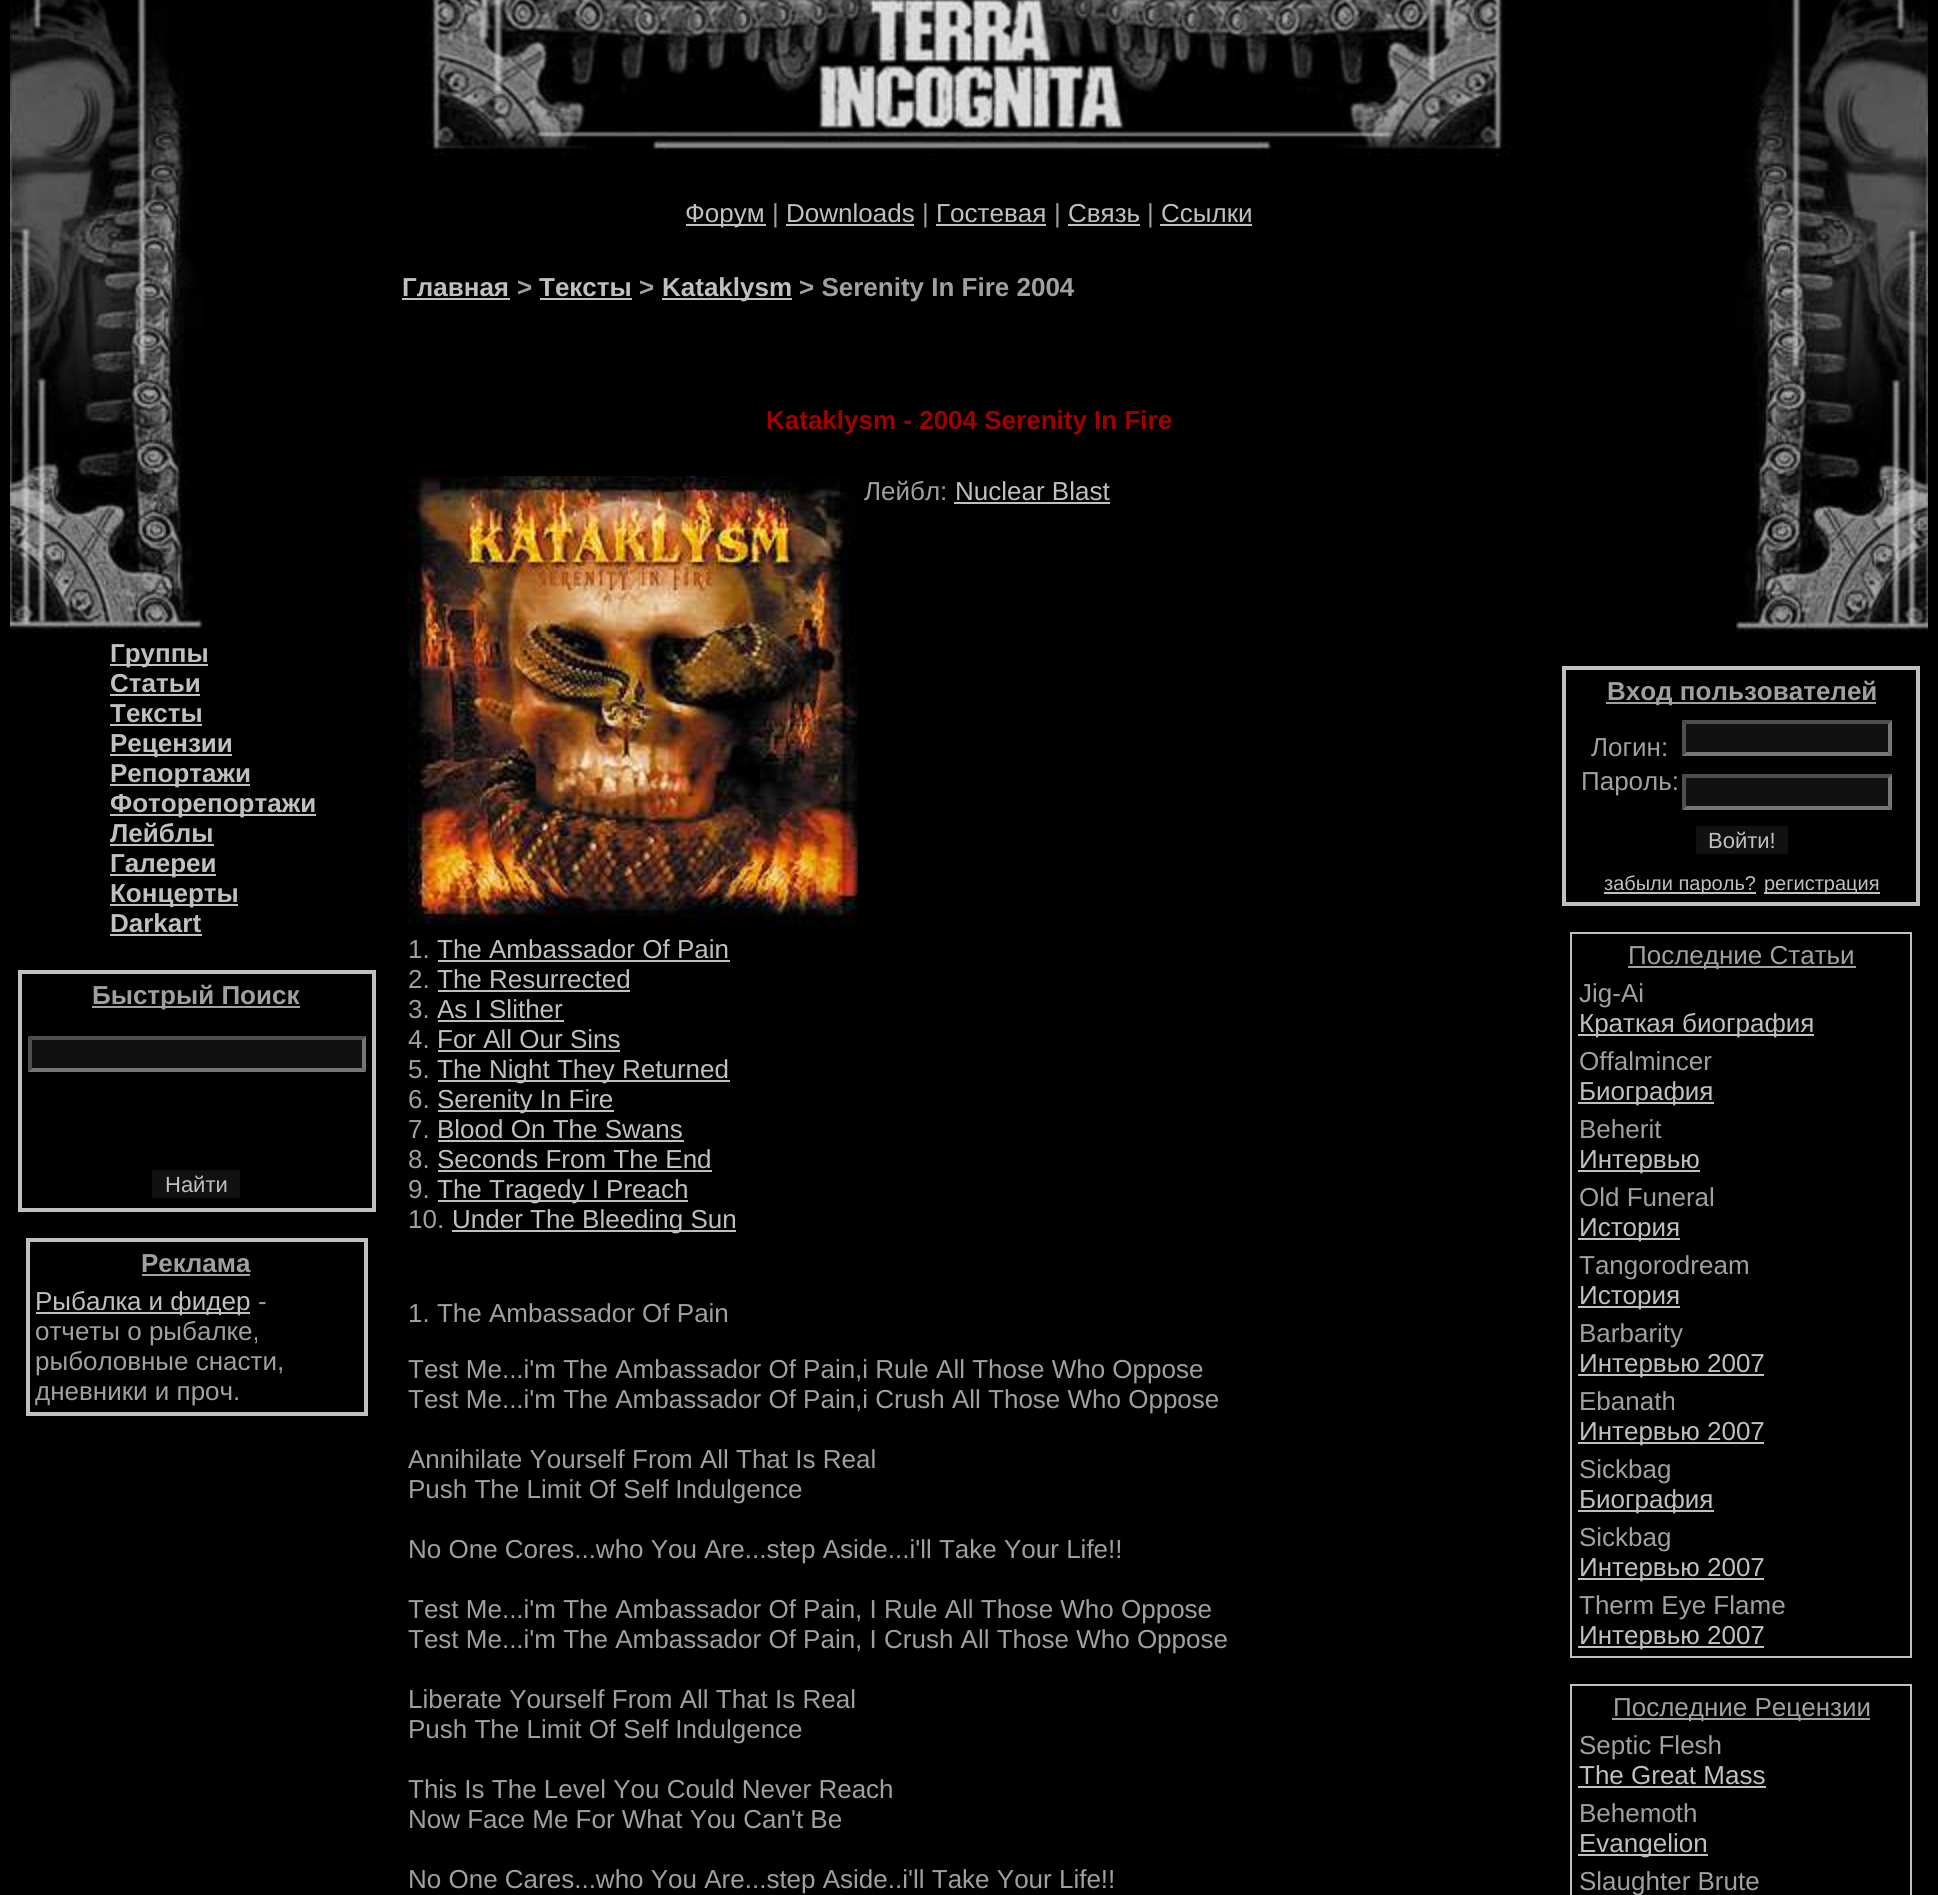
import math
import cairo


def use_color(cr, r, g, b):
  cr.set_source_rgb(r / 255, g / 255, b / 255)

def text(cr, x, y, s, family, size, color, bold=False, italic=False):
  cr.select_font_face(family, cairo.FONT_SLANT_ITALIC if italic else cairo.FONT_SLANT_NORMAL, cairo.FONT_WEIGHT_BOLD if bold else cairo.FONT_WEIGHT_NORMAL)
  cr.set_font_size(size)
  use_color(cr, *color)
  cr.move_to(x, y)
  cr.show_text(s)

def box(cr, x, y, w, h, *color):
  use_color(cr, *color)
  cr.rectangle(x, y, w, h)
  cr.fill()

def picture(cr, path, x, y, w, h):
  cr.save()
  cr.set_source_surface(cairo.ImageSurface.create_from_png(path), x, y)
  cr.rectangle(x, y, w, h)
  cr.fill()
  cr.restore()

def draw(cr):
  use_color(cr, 0, 0, 0)
  cr.paint()
  picture(cr, "img_01.png", 10, 0, 192, 632)
  box(cr, 110, 664, 98, 2, 192, 192, 192)
  box(cr, 110, 694, 90, 2, 192, 192, 192)
  box(cr, 110, 724, 92, 2, 192, 192, 192)
  box(cr, 110, 754, 122, 2, 192, 192, 192)
  box(cr, 110, 784, 140, 2, 192, 192, 192)
  box(cr, 110, 814, 206, 2, 192, 192, 192)
  box(cr, 110, 844, 104, 2, 192, 192, 192)
  box(cr, 110, 874, 106, 2, 192, 192, 192)
  box(cr, 110, 904, 128, 2, 192, 192, 192)
  box(cr, 110, 934, 92, 2, 192, 192, 192)
  cr.rectangle(20, 972, 354, 238)
  cr.set_line_width(4)
  cr.stroke()
  box(cr, 92, 1006, 208, 2, 160, 160, 160)
  box(cr, 28, 1036, 338, 36, 17, 17, 17)
  use_color(cr, 79, 79, 79)
  cr.new_path()
  cr.move_to(28, 1036)
  cr.line_to(366, 1036)
  cr.line_to(362, 1040)
  cr.line_to(32, 1040)
  cr.close_path()
  cr.fill()
  use_color(cr, 118, 118, 118)
  cr.new_path()
  cr.move_to(366, 1036)
  cr.line_to(366, 1072)
  cr.line_to(362, 1068)
  cr.line_to(362, 1040)
  cr.close_path()
  cr.fill()
  cr.new_path()
  cr.move_to(366, 1072)
  cr.line_to(28, 1072)
  cr.line_to(32, 1068)
  cr.line_to(362, 1068)
  cr.close_path()
  cr.fill()
  use_color(cr, 79, 79, 79)
  cr.new_path()
  cr.move_to(28, 1072)
  cr.line_to(28, 1036)
  cr.line_to(32, 1040)
  cr.line_to(32, 1068)
  cr.close_path()
  cr.fill()
  box(cr, 152, 1170, 88, 28, 17, 17, 17)
  cr.rectangle(28, 1240, 338, 174)
  use_color(cr, 192, 192, 192)
  cr.stroke()
  box(cr, 142, 1274, 108, 2, 160, 160, 160)
  box(cr, 36, 1312, 214, 2, 192, 192, 192)
  picture(cr, "img_02.png", 426, 0, 1086, 156)
  box(cr, 686, 224, 80, 2, 192, 192, 192)
  box(cr, 786, 224, 128, 2, 192, 192, 192)
  box(cr, 936, 224, 110, 2, 192, 192, 192)
  box(cr, 1068, 224, 72, 2, 192, 192, 192)
  box(cr, 1160, 224, 92, 2, 192, 192, 192)
  box(cr, 402, 298, 108, 2, 192, 192, 192)
  box(cr, 540, 298, 92, 2, 192, 192, 192)
  box(cr, 662, 298, 130, 2, 192, 192, 192)
  picture(cr, "img_03.png", 408, 476, 450, 450)
  box(cr, 954, 502, 156, 2, 192, 192, 192)
  box(cr, 438, 960, 292, 2, 192, 192, 192)
  box(cr, 438, 990, 192, 2, 192, 192, 192)
  box(cr, 438, 1020, 126, 2, 192, 192, 192)
  box(cr, 438, 1050, 182, 2, 192, 192, 192)
  box(cr, 438, 1080, 292, 2, 192, 192, 192)
  box(cr, 438, 1110, 176, 2, 192, 192, 192)
  box(cr, 438, 1140, 246, 2, 192, 192, 192)
  box(cr, 438, 1170, 274, 2, 192, 192, 192)
  box(cr, 438, 1200, 250, 2, 192, 192, 192)
  box(cr, 452, 1230, 284, 2, 192, 192, 192)
  picture(cr, "img_04.png", 1736, 0, 192, 632)
  cr.rectangle(1564, 668, 354, 236)
  cr.stroke()
  box(cr, 1606, 702, 270, 2, 160, 160, 160)
  box(cr, 1682, 720, 210, 36, 17, 17, 17)
  use_color(cr, 79, 79, 79)
  cr.new_path()
  cr.move_to(1682, 720)
  cr.line_to(1892, 720)
  cr.line_to(1888, 724)
  cr.line_to(1686, 724)
  cr.close_path()
  cr.fill()
  use_color(cr, 118, 118, 118)
  cr.new_path()
  cr.move_to(1892, 720)
  cr.line_to(1892, 756)
  cr.line_to(1888, 752)
  cr.line_to(1888, 724)
  cr.close_path()
  cr.fill()
  cr.new_path()
  cr.move_to(1892, 756)
  cr.line_to(1682, 756)
  cr.line_to(1686, 752)
  cr.line_to(1888, 752)
  cr.close_path()
  cr.fill()
  use_color(cr, 79, 79, 79)
  cr.new_path()
  cr.move_to(1682, 756)
  cr.line_to(1682, 720)
  cr.line_to(1686, 724)
  cr.line_to(1686, 752)
  cr.close_path()
  cr.fill()
  box(cr, 1682, 774, 210, 36, 17, 17, 17)
  use_color(cr, 79, 79, 79)
  cr.new_path()
  cr.move_to(1682, 774)
  cr.line_to(1892, 774)
  cr.line_to(1888, 778)
  cr.line_to(1686, 778)
  cr.close_path()
  cr.fill()
  use_color(cr, 118, 118, 118)
  cr.new_path()
  cr.move_to(1892, 774)
  cr.line_to(1892, 810)
  cr.line_to(1888, 806)
  cr.line_to(1888, 778)
  cr.close_path()
  cr.fill()
  cr.new_path()
  cr.move_to(1892, 810)
  cr.line_to(1682, 810)
  cr.line_to(1686, 806)
  cr.line_to(1888, 806)
  cr.close_path()
  cr.fill()
  use_color(cr, 79, 79, 79)
  cr.new_path()
  cr.move_to(1682, 810)
  cr.line_to(1682, 774)
  cr.line_to(1686, 778)
  cr.line_to(1686, 806)
  cr.close_path()
  cr.fill()
  box(cr, 1696, 826, 92, 28, 17, 17, 17)
  box(cr, 1604, 892, 152, 2, 192, 192, 192)
  box(cr, 1764, 892, 116, 2, 192, 192, 192)
  cr.rectangle(1571, 933, 340, 724)
  cr.set_line_width(2)
  cr.stroke()
  box(cr, 1628, 966, 228, 2, 160, 160, 160)
  box(cr, 1578, 1034, 236, 2, 192, 192, 192)
  box(cr, 1578, 1102, 136, 2, 192, 192, 192)
  box(cr, 1578, 1170, 122, 2, 192, 192, 192)
  box(cr, 1578, 1238, 102, 2, 192, 192, 192)
  box(cr, 1578, 1306, 102, 2, 192, 192, 192)
  box(cr, 1578, 1374, 186, 2, 192, 192, 192)
  box(cr, 1578, 1442, 186, 2, 192, 192, 192)
  box(cr, 1578, 1510, 136, 2, 192, 192, 192)
  box(cr, 1578, 1578, 186, 2, 192, 192, 192)
  box(cr, 1578, 1646, 186, 2, 192, 192, 192)
  cr.rectangle(1571, 1685, 340, 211)
  cr.stroke()
  box(cr, 1612, 1718, 258, 2, 160, 160, 160)
  box(cr, 1578, 1786, 188, 2, 192, 192, 192)
  box(cr, 1578, 1854, 130, 2, 192, 192, 192)
  text(cr, 110, 662, "Группы", "Liberation Sans", 26, (192, 192, 192), bold=True)
  text(cr, 110, 692, "Статьи", "Liberation Sans", 26, (192, 192, 192), bold=True)
  text(cr, 110, 722, "Тексты", "Liberation Sans", 26, (192, 192, 192), bold=True)
  text(cr, 110, 752, "Рецензии", "Liberation Sans", 26, (192, 192, 192), bold=True)
  text(cr, 110, 782, "Репортажи", "Liberation Sans", 26, (192, 192, 192), bold=True)
  text(cr, 110, 812, "Фоторепортажи", "Liberation Sans", 26, (192, 192, 192), bold=True)
  text(cr, 110, 842, "Лейблы", "Liberation Sans", 26, (192, 192, 192), bold=True)
  text(cr, 110, 872, "Галереи", "Liberation Sans", 26, (192, 192, 192), bold=True)
  text(cr, 110, 902, "Концерты", "Liberation Sans", 26, (192, 192, 192), bold=True)
  text(cr, 110, 932, "Darkart", "Liberation Sans", 26, (192, 192, 192), bold=True)
  text(cr, 92, 1004, "Быстрый Поиск", "Liberation Sans", 26, (160, 160, 160), bold=True)
  text(cr, 165, 1192, "Найти", "Liberation Sans", 22, (192, 192, 192))
  text(cr, 141, 1272, "Реклама", "Liberation Sans", 26, (160, 160, 160), bold=True)
  text(cr, 35, 1310, "Рыбалка и фидер", "Liberation Sans", 26, (192, 192, 192))
  text(cr, 258, 1310, "-", "Liberation Sans", 26, (160, 160, 160))
  text(cr, 35, 1340, "отчеты о рыбалке,", "Liberation Sans", 26, (160, 160, 160))
  text(cr, 35, 1370, "рыболовные снасти,", "Liberation Sans", 26, (160, 160, 160))
  text(cr, 35, 1400, "дневники и проч.", "Liberation Sans", 26, (160, 160, 160))
  text(cr, 685, 222, "Форум", "Liberation Sans", 26, (192, 192, 192))
  text(cr, 772, 222, "|", "Liberation Sans", 26, (160, 160, 160))
  text(cr, 786, 222, "Downloads", "Liberation Sans", 26, (192, 192, 192))
  text(cr, 922, 222, "|", "Liberation Sans", 26, (160, 160, 160))
  text(cr, 936, 222, "Гостевая", "Liberation Sans", 26, (192, 192, 192))
  text(cr, 1054, 222, "|", "Liberation Sans", 26, (160, 160, 160))
  text(cr, 1068, 222, "Связь", "Liberation Sans", 26, (192, 192, 192))
  text(cr, 1147, 222, "|", "Liberation Sans", 26, (160, 160, 160))
  text(cr, 1161, 222, "Ссылки", "Liberation Sans", 26, (192, 192, 192))
  text(cr, 402, 296, "Главная", "Liberation Sans", 26, (192, 192, 192), bold=True)
  text(cr, 517, 296, ">", "Liberation Sans", 26, (160, 160, 160), bold=True)
  text(cr, 539, 296, "Тексты", "Liberation Sans", 26, (192, 192, 192), bold=True)
  text(cr, 639, 296, ">", "Liberation Sans", 26, (160, 160, 160), bold=True)
  text(cr, 662, 296, "Kataklysm", "Liberation Sans", 26, (192, 192, 192), bold=True)
  text(cr, 799, 296, "> Serenity In Fire 2004", "Liberation Sans", 26, (160, 160, 160), bold=True)
  text(cr, 766, 429, "Kataklysm - 2004 Serenity In Fire", "Liberation Sans", 26, (160, 0, 0), bold=True)
  text(cr, 864, 500, "Лейбл:", "Liberation Sans", 26, (160, 160, 160))
  text(cr, 955, 500, "Nuclear Blast", "Liberation Sans", 26, (192, 192, 192))
  text(cr, 408, 958, "1.", "Liberation Sans", 26, (160, 160, 160))
  text(cr, 437, 958, "The Ambassador Of Pain", "Liberation Sans", 26, (192, 192, 192))
  text(cr, 408, 988, "2.", "Liberation Sans", 26, (160, 160, 160))
  text(cr, 437, 988, "The Resurrected", "Liberation Sans", 26, (192, 192, 192))
  text(cr, 408, 1018, "3.", "Liberation Sans", 26, (160, 160, 160))
  text(cr, 437, 1018, "As I Slither", "Liberation Sans", 26, (192, 192, 192))
  text(cr, 408, 1048, "4.", "Liberation Sans", 26, (160, 160, 160))
  text(cr, 437, 1048, "For All Our Sins", "Liberation Sans", 26, (192, 192, 192))
  text(cr, 408, 1078, "5.", "Liberation Sans", 26, (160, 160, 160))
  text(cr, 437, 1078, "The Night They Returned", "Liberation Sans", 26, (192, 192, 192))
  text(cr, 408, 1108, "6.", "Liberation Sans", 26, (160, 160, 160))
  text(cr, 437, 1108, "Serenity In Fire", "Liberation Sans", 26, (192, 192, 192))
  text(cr, 408, 1138, "7.", "Liberation Sans", 26, (160, 160, 160))
  text(cr, 437, 1138, "Blood On The Swans", "Liberation Sans", 26, (192, 192, 192))
  text(cr, 408, 1168, "8.", "Liberation Sans", 26, (160, 160, 160))
  text(cr, 437, 1168, "Seconds From The End", "Liberation Sans", 26, (192, 192, 192))
  text(cr, 408, 1198, "9.", "Liberation Sans", 26, (160, 160, 160))
  text(cr, 437, 1198, "The Tragedy I Preach", "Liberation Sans", 26, (192, 192, 192))
  text(cr, 408, 1228, "10.", "Liberation Sans", 26, (160, 160, 160))
  text(cr, 452, 1228, "Under The Bleeding Sun", "Liberation Sans", 26, (192, 192, 192))
  text(cr, 408, 1322, "1. The Ambassador Of Pain", "Liberation Sans", 26, (160, 160, 160))
  text(cr, 408, 1378, "Test Me...i'm The Ambassador Of Pain,i Rule All Those Who Oppose", "Liberation Sans", 26, (160, 160, 160))
  text(cr, 408, 1408, "Test Me...i'm The Ambassador Of Pain,i Crush All Those Who Oppose", "Liberation Sans", 26, (160, 160, 160))
  text(cr, 408, 1468, "Annihilate Yourself From All That Is Real", "Liberation Sans", 26, (160, 160, 160))
  text(cr, 408, 1498, "Push The Limit Of Self Indulgence", "Liberation Sans", 26, (160, 160, 160))
  text(cr, 408, 1558, "No One Cores...who You Are...step Aside...i'll Take Your Life!!", "Liberation Sans", 26, (160, 160, 160))
  text(cr, 408, 1618, "Test Me...i'm The Ambassador Of Pain, I Rule All Those Who Oppose", "Liberation Sans", 26, (160, 160, 160))
  text(cr, 408, 1648, "Test Me...i'm The Ambassador Of Pain, I Crush All Those Who Oppose", "Liberation Sans", 26, (160, 160, 160))
  text(cr, 408, 1708, "Liberate Yourself From All That Is Real", "Liberation Sans", 26, (160, 160, 160))
  text(cr, 408, 1738, "Push The Limit Of Self Indulgence", "Liberation Sans", 26, (160, 160, 160))
  text(cr, 408, 1798, "This Is The Level You Could Never Reach", "Liberation Sans", 26, (160, 160, 160))
  text(cr, 408, 1828, "Now Face Me For What You Can't Be", "Liberation Sans", 26, (160, 160, 160))
  text(cr, 408, 1888, "No One Cares...who You Are...step Aside..i'll Take Your Life!!", "Liberation Sans", 26, (160, 160, 160))
  text(cr, 1607, 700, "Вход пользователей", "Liberation Sans", 26, (160, 160, 160), bold=True)
  text(cr, 1591, 756, "Логин:", "Liberation Sans", 26, (160, 160, 160))
  text(cr, 1581, 790, "Пароль:", "Liberation Sans", 26, (160, 160, 160))
  text(cr, 1708, 848, "Войти!", "Liberation Sans", 22, (192, 192, 192))
  text(cr, 1604, 890, "забыли пароль?", "Liberation Sans", 20, (192, 192, 192))
  text(cr, 1764, 890, "регистрация", "Liberation Sans", 20, (192, 192, 192))
  text(cr, 1628, 964, "Последние Статьи", "Liberation Sans", 26, (160, 160, 160))
  text(cr, 1579, 1002, "Jig-Ai", "Liberation Sans", 26, (160, 160, 160))
  text(cr, 1579, 1032, "Краткая биография", "Liberation Sans", 26, (192, 192, 192))
  text(cr, 1579, 1070, "Offalmincer", "Liberation Sans", 26, (160, 160, 160))
  text(cr, 1579, 1100, "Биография", "Liberation Sans", 26, (192, 192, 192))
  text(cr, 1579, 1138, "Beherit", "Liberation Sans", 26, (160, 160, 160))
  text(cr, 1579, 1168, "Интервью", "Liberation Sans", 26, (192, 192, 192))
  text(cr, 1579, 1206, "Old Funeral", "Liberation Sans", 26, (160, 160, 160))
  text(cr, 1579, 1236, "История", "Liberation Sans", 26, (192, 192, 192))
  text(cr, 1579, 1274, "Tangorodream", "Liberation Sans", 26, (160, 160, 160))
  text(cr, 1579, 1304, "История", "Liberation Sans", 26, (192, 192, 192))
  text(cr, 1579, 1342, "Barbarity", "Liberation Sans", 26, (160, 160, 160))
  text(cr, 1579, 1372, "Интервью 2007", "Liberation Sans", 26, (192, 192, 192))
  text(cr, 1579, 1410, "Ebanath", "Liberation Sans", 26, (160, 160, 160))
  text(cr, 1579, 1440, "Интервью 2007", "Liberation Sans", 26, (192, 192, 192))
  text(cr, 1579, 1478, "Sickbag", "Liberation Sans", 26, (160, 160, 160))
  text(cr, 1579, 1508, "Биография", "Liberation Sans", 26, (192, 192, 192))
  text(cr, 1579, 1546, "Sickbag", "Liberation Sans", 26, (160, 160, 160))
  text(cr, 1579, 1576, "Интервью 2007", "Liberation Sans", 26, (192, 192, 192))
  text(cr, 1579, 1614, "Therm Eye Flame", "Liberation Sans", 26, (160, 160, 160))
  text(cr, 1579, 1644, "Интервью 2007", "Liberation Sans", 26, (192, 192, 192))
  text(cr, 1613, 1716, "Последние Рецензии", "Liberation Sans", 26, (160, 160, 160))
  text(cr, 1579, 1754, "Septic Flesh", "Liberation Sans", 26, (160, 160, 160))
  text(cr, 1579, 1784, "The Great Mass", "Liberation Sans", 26, (192, 192, 192))
  text(cr, 1579, 1822, "Behemoth", "Liberation Sans", 26, (160, 160, 160))
  text(cr, 1579, 1852, "Evangelion", "Liberation Sans", 26, (192, 192, 192))
  text(cr, 1579, 1890, "Slaughter Brute", "Liberation Sans", 26, (160, 160, 160))


surface = cairo.ImageSurface(cairo.FORMAT_RGB24, 1938, 1895)
cr = cairo.Context(surface)
options = cairo.FontOptions()
options.set_hint_metrics(cairo.HINT_METRICS_OFF)
options.set_hint_style(cairo.HINT_STYLE_NONE)
cr.set_font_options(options)
cr.set_miter_limit(4)
draw(cr)
surface.write_to_png("out.png")
